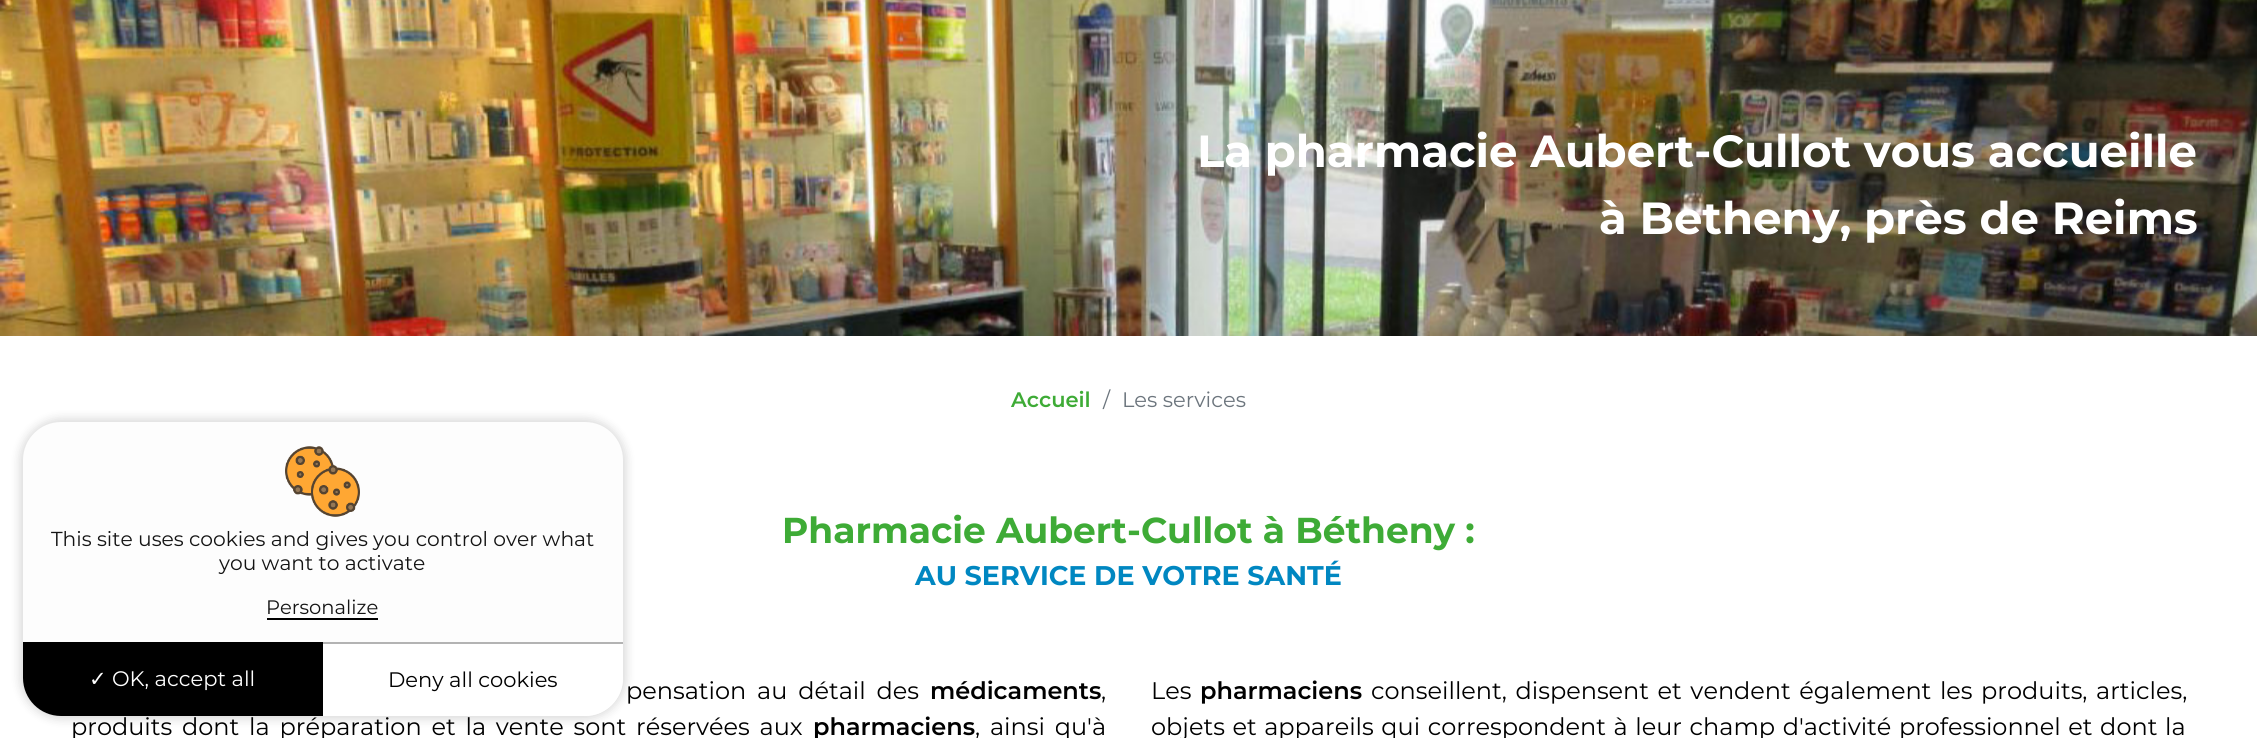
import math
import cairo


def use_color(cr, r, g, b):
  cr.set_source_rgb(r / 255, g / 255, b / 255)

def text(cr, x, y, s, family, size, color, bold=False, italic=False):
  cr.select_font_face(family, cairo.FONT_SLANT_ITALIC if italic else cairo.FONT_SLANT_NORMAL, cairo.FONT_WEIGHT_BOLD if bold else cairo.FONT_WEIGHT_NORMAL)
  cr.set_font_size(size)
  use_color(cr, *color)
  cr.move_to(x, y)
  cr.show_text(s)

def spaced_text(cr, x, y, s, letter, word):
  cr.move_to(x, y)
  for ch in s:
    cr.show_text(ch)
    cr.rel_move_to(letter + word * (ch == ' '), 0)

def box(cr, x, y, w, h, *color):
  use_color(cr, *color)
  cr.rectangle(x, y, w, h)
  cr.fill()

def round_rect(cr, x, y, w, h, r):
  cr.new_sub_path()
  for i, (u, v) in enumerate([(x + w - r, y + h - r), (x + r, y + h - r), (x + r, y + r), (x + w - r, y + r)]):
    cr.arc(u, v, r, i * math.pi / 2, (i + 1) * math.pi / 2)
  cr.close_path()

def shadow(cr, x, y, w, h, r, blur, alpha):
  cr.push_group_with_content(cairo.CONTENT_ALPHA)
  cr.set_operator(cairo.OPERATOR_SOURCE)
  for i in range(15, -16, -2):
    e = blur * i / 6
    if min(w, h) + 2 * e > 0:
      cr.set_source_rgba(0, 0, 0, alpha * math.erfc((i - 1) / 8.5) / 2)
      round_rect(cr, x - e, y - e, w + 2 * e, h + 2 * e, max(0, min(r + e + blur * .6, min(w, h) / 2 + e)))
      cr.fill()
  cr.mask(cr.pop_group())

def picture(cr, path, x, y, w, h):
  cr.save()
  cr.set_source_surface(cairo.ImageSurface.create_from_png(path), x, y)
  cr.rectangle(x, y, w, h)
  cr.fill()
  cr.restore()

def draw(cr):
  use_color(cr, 255, 255, 255)
  cr.paint()
  picture(cr, "img_01.png", 0, 0, 2257, 336)
  use_color(cr, 0, 0, 0)
  shadow(cr, 20, 419, 606, 300, 41, 5, 0.15)
  use_color(cr, 253, 253, 253)
  round_rect(cr, 23, 422, 600, 294, 38)
  cr.fill()
  picture(cr, "img_02.png", 285, 446, 75, 71)
  box(cr, 267, 618, 111, 2, 0, 0, 0)
  cr.new_path()
  cr.move_to(23, 642)
  cr.line_to(323, 642)
  cr.line_to(323, 716)
  cr.line_to(61, 716)
  cr.curve_to(40, 716, 23, 699, 23, 678)
  cr.close_path()
  cr.fill()
  use_color(cr, 255, 255, 255)
  cr.new_path()
  cr.move_to(323, 642)
  cr.line_to(623, 642)
  cr.line_to(623, 678)
  cr.curve_to(623, 699, 606, 716, 585, 716)
  cr.line_to(323, 716)
  cr.close_path()
  cr.fill()
  box(cr, 323, 642, 300, 2, 179, 179, 179)
  text(cr, 1197, 167, "La pharmacie Aubert-Cullot vous accueille", "Montserrat", 45, (255, 255, 255), bold=True)
  text(cr, 1599, 234, "à Betheny, près de Reims", "Montserrat", 45, (255, 255, 255), bold=True)
  text(cr, 1011, 407, "Accueil", "Montserrat SemiBold", 21, (62, 171, 54))
  text(cr, 1103, 407, "/", "Montserrat", 21, (108, 117, 125))
  text(cr, 1122, 407, "Les services", "Montserrat", 21, (108, 117, 125))
  text(cr, 782, 543, "Pharmacie Aubert-Cullot à Bétheny :", "Montserrat", 36, (62, 171, 54), bold=True)
  text(cr, 915, 585, "AU SERVICE DE VOTRE SANTÉ", "Montserrat", 27, (0, 135, 193), bold=True)
  cr.select_font_face("Montserrat")
  cr.set_font_size(24)
  use_color(cr, 0, 0, 0)
  spaced_text(cr, 626, 699, "pensation au détail des", 0, 4.5)
  text(cr, 930, 699, "médicaments", "Montserrat SemiBold", 24, (0, 0, 0))
  text(cr, 1101, 699, ",", "Montserrat", 24, (0, 0, 0))
  spaced_text(cr, 71, 735, "produits dont la préparation et la vente sont réservées aux", 0, 3.5)
  text(cr, 813, 735, "pharmaciens", "Montserrat SemiBold", 24, (0, 0, 0))
  cr.select_font_face("Montserrat")
  spaced_text(cr, 975, 735, ", ainsi qu'à", 0, 3.5)
  text(cr, 1151, 699, "Les", "Montserrat", 24, (0, 0, 0))
  text(cr, 1200, 699, "pharmaciens", "Montserrat SemiBold", 24, (0, 0, 0))
  cr.select_font_face("Montserrat")
  spaced_text(cr, 1371, 699, "conseillent, dispensent et vendent également les produits, articles,", 0, 2.25)
  spaced_text(cr, 1151, 735, "objets et appareils qui correspondent à leur champ d'activité professionnel et dont la", 0, 1.25)
  text(cr, 51, 546, "This site uses cookies and gives you control over what", "Montserrat", 20.25, (20, 20, 20))
  text(cr, 219, 570, "you want to activate", "Montserrat", 20.25, (20, 20, 20))
  text(cr, 266, 614, "Personalize", "Montserrat", 19.5, (20, 20, 20))
  text(cr, 89, 686, "✓", "DejaVu Sans", 21, (255, 255, 255))
  text(cr, 112, 686, "OK, accept all", "Montserrat", 21, (255, 255, 255))
  text(cr, 388, 687, "Deny all cookies", "Montserrat", 21, (0, 0, 0))


surface = cairo.ImageSurface(cairo.FORMAT_RGB24, 2257, 738)
cr = cairo.Context(surface)
options = cairo.FontOptions()
options.set_hint_metrics(cairo.HINT_METRICS_OFF)
options.set_hint_style(cairo.HINT_STYLE_NONE)
cr.set_font_options(options)
cr.set_miter_limit(4)
draw(cr)
surface.write_to_png("out.png")
